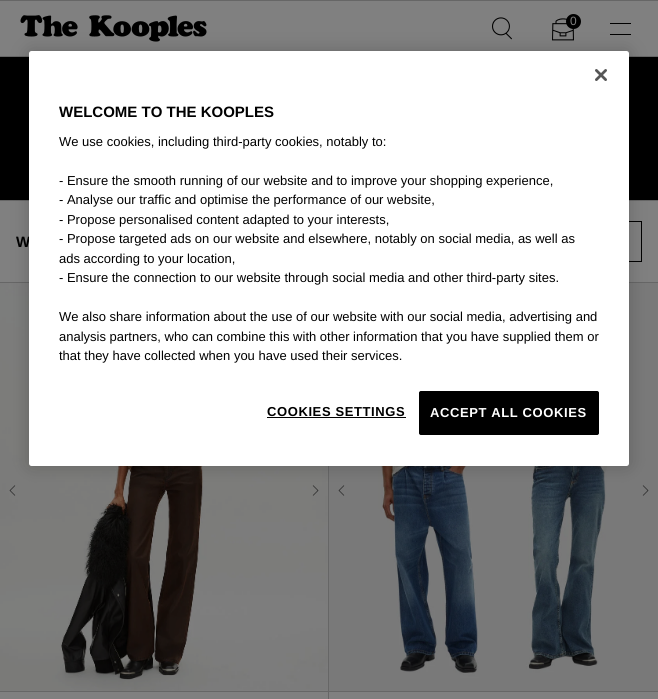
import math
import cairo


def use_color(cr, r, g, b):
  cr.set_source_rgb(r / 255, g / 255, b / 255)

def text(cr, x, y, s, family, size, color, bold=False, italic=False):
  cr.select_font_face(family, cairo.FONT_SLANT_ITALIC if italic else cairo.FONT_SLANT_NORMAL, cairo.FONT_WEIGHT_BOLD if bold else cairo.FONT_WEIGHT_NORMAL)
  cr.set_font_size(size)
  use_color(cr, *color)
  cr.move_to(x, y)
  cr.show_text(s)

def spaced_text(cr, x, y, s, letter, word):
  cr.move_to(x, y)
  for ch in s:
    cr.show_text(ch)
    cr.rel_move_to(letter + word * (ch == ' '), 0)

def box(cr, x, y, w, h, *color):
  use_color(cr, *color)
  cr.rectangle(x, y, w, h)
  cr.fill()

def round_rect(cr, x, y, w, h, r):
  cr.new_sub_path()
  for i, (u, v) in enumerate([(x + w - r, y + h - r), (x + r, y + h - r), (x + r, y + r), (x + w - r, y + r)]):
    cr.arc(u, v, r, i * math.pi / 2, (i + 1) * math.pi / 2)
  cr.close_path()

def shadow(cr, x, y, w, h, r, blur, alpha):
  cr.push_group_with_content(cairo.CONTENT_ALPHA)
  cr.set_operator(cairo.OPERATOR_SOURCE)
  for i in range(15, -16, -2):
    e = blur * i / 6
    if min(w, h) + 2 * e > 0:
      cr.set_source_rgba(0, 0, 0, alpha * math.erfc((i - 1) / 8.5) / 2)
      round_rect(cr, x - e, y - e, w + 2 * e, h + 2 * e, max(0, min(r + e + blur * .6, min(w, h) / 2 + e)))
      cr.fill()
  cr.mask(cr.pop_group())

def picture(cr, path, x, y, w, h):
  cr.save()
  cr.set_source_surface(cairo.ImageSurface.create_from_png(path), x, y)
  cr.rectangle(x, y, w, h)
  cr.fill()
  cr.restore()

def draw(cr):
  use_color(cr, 128, 128, 128)
  cr.paint()
  box(cr, 0, 0, 658, 1, 102, 102, 102)
  box(cr, 0, 56, 658, 1, 102, 102, 102)
  picture(cr, "img_01.png", 20, 15, 187, 27)
  picture(cr, "img_02.png", 492, 17, 20, 23)
  picture(cr, "img_03.png", 552, 18, 22, 23)
  use_color(cr, 0, 0, 0)
  cr.arc(573.5, 21.5, 7.5, 0, 2 * math.pi)
  cr.fill()
  box(cr, 610, 23, 21, 1, 0, 0, 0)
  box(cr, 610, 34, 21, 1, 0, 0, 0)
  box(cr, 0, 200, 658, 1, 102, 102, 102)
  box(cr, 0, 57, 658, 143, 0, 0, 0)
  cr.rectangle(552.5, 221.5, 89, 40)
  cr.set_line_width(1)
  cr.stroke()
  box(cr, 0, 282, 658, 1, 102, 102, 102)
  box(cr, 328, 466, 1, 233, 102, 102, 102)
  box(cr, 0, 691, 328, 1, 102, 102, 102)
  picture(cr, "img_04.png", 0, 283, 328, 408)
  cr.new_path()
  cr.move_to(15, 495.5)
  cr.line_to(10, 490.5)
  cr.line_to(15, 485.5)
  use_color(cr, 37, 37, 37)
  cr.set_line_width(0.7)
  cr.stroke()
  cr.new_path()
  cr.move_to(313, 485.5)
  cr.line_to(318, 490.5)
  cr.line_to(313, 495.5)
  cr.stroke()
  box(cr, 329, 691, 329, 1, 102, 102, 102)
  picture(cr, "img_05.png", 329, 283, 329, 408)
  cr.new_path()
  cr.move_to(344, 495.5)
  cr.line_to(339, 490.5)
  cr.line_to(344, 485.5)
  use_color(cr, 37, 37, 37)
  cr.stroke()
  cr.new_path()
  cr.move_to(643, 485.5)
  cr.line_to(648, 490.5)
  cr.line_to(643, 495.5)
  cr.stroke()
  use_color(cr, 0, 0, 0)
  shadow(cr, 29, 51, 600, 415, 2.5, 9, 0.2)
  text(cr, 570, 25, "0", "Liberation Sans", 12, (128, 128, 128))
  text(cr, 16, 247, "W", "Liberation Sans", 15, (0, 0, 0), bold=True)
  use_color(cr, 255, 255, 255)
  round_rect(cr, 29, 51, 600, 415, 2.5)
  cr.fill()
  picture(cr, "img_06.png", 595, 69, 12, 12)
  text(cr, 59, 117, "WELCOME TO THE KOOPLES", "Liberation Sans", 15, (0, 0, 0), bold=True)
  text(cr, 59, 146, "We use cookies, including third-party cookies, notably to:", "Liberation Sans", 13, (0, 0, 0))
  text(cr, 59, 185, "- Ensure the smooth running of our website and to improve your shopping experience,", "Liberation Sans", 13, (0, 0, 0))
  text(cr, 59, 204, "- Analyse our traffic and optimise the performance of our website,", "Liberation Sans", 13, (0, 0, 0))
  text(cr, 59, 224, "- Propose personalised content adapted to your interests,", "Liberation Sans", 13, (0, 0, 0))
  text(cr, 59, 243, "- Propose targeted ads on our website and elsewhere, notably on social media, as well as", "Liberation Sans", 13, (0, 0, 0))
  text(cr, 59, 263, "ads according to your location,", "Liberation Sans", 13, (0, 0, 0))
  text(cr, 59, 282, "- Ensure the connection to our website through social media and other third-party sites.", "Liberation Sans", 13, (0, 0, 0))
  text(cr, 59, 321, "We also share information about the use of our website with our social media, advertising and", "Liberation Sans", 13, (0, 0, 0))
  text(cr, 59, 341, "analysis partners, who can combine this with other information that you have supplied them or", "Liberation Sans", 13, (0, 0, 0))
  text(cr, 59, 360, "that they have collected when you have used their services.", "Liberation Sans", 13, (0, 0, 0))
  cr.select_font_face("Liberation Sans", cairo.FONT_SLANT_NORMAL, cairo.FONT_WEIGHT_BOLD)
  spaced_text(cr, 267, 416, "COOKIES SETTINGS", 0.6, 0)
  box(cr, 267, 417, 139, 1, 0, 0, 0)
  round_rect(cr, 419.5, 391.5, 179, 43, 1.5)
  cr.fill_preserve()
  cr.set_line_width(1)
  cr.stroke()
  use_color(cr, 255, 255, 255)
  spaced_text(cr, 430, 417, "ACCEPT ALL COOKIES", 0.6, 0)


surface = cairo.ImageSurface(cairo.FORMAT_RGB24, 658, 699)
cr = cairo.Context(surface)
options = cairo.FontOptions()
options.set_hint_metrics(cairo.HINT_METRICS_OFF)
options.set_hint_style(cairo.HINT_STYLE_NONE)
cr.set_font_options(options)
cr.set_miter_limit(4)
draw(cr)
surface.write_to_png("out.png")
